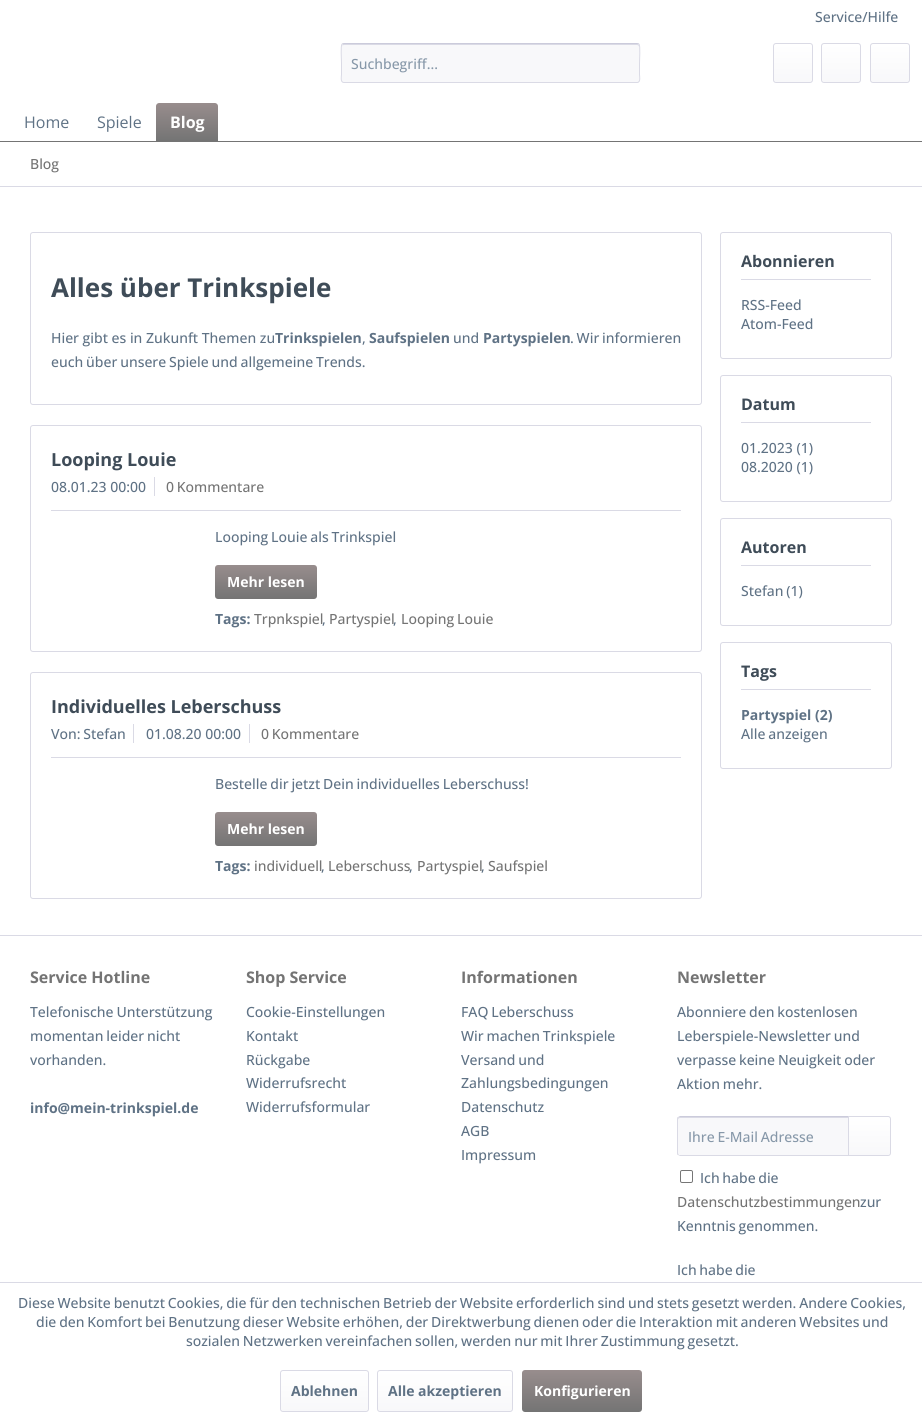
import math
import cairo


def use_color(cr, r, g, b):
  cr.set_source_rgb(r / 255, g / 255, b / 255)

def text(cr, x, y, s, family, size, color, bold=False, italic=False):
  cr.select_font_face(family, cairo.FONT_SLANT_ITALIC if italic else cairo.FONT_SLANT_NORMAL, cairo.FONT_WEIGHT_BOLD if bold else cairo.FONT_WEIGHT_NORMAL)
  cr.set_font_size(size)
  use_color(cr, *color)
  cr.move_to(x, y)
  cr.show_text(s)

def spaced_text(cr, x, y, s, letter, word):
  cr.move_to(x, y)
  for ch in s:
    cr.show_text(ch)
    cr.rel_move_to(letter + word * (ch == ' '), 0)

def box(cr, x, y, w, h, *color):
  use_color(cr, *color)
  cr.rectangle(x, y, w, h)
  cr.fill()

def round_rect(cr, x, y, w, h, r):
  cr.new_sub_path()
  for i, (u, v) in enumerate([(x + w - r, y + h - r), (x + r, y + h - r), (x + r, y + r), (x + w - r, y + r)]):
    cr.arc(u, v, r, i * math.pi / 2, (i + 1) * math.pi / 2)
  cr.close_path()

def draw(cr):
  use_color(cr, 255, 255, 255)
  cr.paint()
  use_color(cr, 248, 248, 250)
  round_rect(cr, 341, 43, 299, 40, 3)
  cr.fill()
  use_color(cr, 218, 218, 229)
  cr.new_path()
  cr.move_to(344, 45)
  cr.line_to(637, 45)
  cr.curve_to(638, 45, 639, 46, 639, 47)
  cr.curve_to(639, 46, 639, 44, 637, 44)
  cr.line_to(343, 44)
  cr.line_to(342, 47)
  cr.curve_to(342, 46, 343, 45, 344, 45)
  cr.close_path()
  cr.fill()
  cr.new_path()
  cr.move_to(342, 44)
  cr.line_to(344, 43.5)
  cr.line_to(637, 43.5)
  cr.line_to(639, 44)
  use_color(cr, 203, 203, 219)
  cr.set_line_width(1)
  cr.stroke()
  cr.new_path()
  cr.move_to(639, 44)
  cr.curve_to(640.5, 46, 639.5, 60, 639.5, 63)
  cr.line_to(639.5, 74.5)
  cr.curve_to(639.5, 76, 641, 82.5, 637, 82.5)
  cr.line_to(344, 82.5)
  cr.curve_to(340, 82.5, 341.5, 76, 341.5, 74.5)
  cr.line_to(341.5, 63)
  cr.curve_to(341.5, 60, 340.5, 46, 342, 44)
  use_color(cr, 218, 218, 229)
  cr.stroke()
  gradient = cairo.LinearGradient(793, 44, 793, 82)
  gradient.add_color_stop_rgba(0, 1, 1, 1, 1)
  gradient.add_color_stop_rgba(1, 0.973, 0.973, 0.98, 1)
  cr.set_source(gradient)
  round_rect(cr, 774, 44, 38, 38, 2)
  cr.fill()
  round_rect(cr, 773.5, 43.5, 39, 39, 2.5)
  use_color(cr, 218, 218, 229)
  cr.stroke()
  gradient = cairo.LinearGradient(841, 44, 841, 82)
  gradient.add_color_stop_rgba(0, 1, 1, 1, 1)
  gradient.add_color_stop_rgba(1, 0.973, 0.973, 0.98, 1)
  cr.set_source(gradient)
  round_rect(cr, 822, 44, 38, 38, 2)
  cr.fill()
  round_rect(cr, 821.5, 43.5, 39, 39, 2.5)
  use_color(cr, 218, 218, 229)
  cr.stroke()
  gradient = cairo.LinearGradient(890, 44, 890, 82)
  gradient.add_color_stop_rgba(0, 1, 1, 1, 1)
  gradient.add_color_stop_rgba(1, 0.973, 0.973, 0.98, 1)
  cr.set_source(gradient)
  round_rect(cr, 871, 44, 38, 38, 2)
  cr.fill()
  round_rect(cr, 870.5, 43.5, 39, 39, 2.5)
  use_color(cr, 218, 218, 229)
  cr.stroke()
  box(cr, 0, 141, 922, 1, 116, 116, 116)
  gradient = cairo.LinearGradient(187, 103, 187, 141)
  gradient.add_color_stop_rgba(0, 0.596, 0.553, 0.553, 1)
  gradient.add_color_stop_rgba(1, 0.455, 0.455, 0.455, 1)
  cr.set_source(gradient)
  cr.new_path()
  cr.move_to(159, 103)
  cr.line_to(215, 103)
  cr.curve_to(216.5, 103, 218, 104.5, 218, 106)
  cr.line_to(218, 141)
  cr.line_to(156, 141)
  cr.line_to(156, 106)
  cr.curve_to(156, 104.5, 157.5, 103, 159, 103)
  cr.close_path()
  cr.fill()
  box(cr, 0, 186, 922, 1, 218, 218, 229)
  round_rect(cr, 30.5, 232.5, 671, 172, 2.5)
  cr.stroke()
  round_rect(cr, 30.5, 425.5, 671, 226, 2.5)
  cr.stroke()
  box(cr, 51, 510, 630, 1, 218, 218, 229)
  box(cr, 154, 477, 1, 19, 218, 218, 229)
  gradient = cairo.LinearGradient(266, 565, 266, 599)
  gradient.add_color_stop_rgba(0, 0.596, 0.553, 0.553, 1)
  gradient.add_color_stop_rgba(1, 0.455, 0.455, 0.455, 1)
  cr.set_source(gradient)
  round_rect(cr, 215, 565, 102, 34, 3)
  cr.fill()
  round_rect(cr, 30.5, 672.5, 671, 226, 2.5)
  use_color(cr, 218, 218, 229)
  cr.stroke()
  box(cr, 51, 757, 630, 1, 218, 218, 229)
  box(cr, 133, 724, 1, 19, 218, 218, 229)
  box(cr, 249, 724, 1, 19, 218, 218, 229)
  gradient = cairo.LinearGradient(266, 812, 266, 846)
  gradient.add_color_stop_rgba(0, 0.596, 0.553, 0.553, 1)
  gradient.add_color_stop_rgba(1, 0.455, 0.455, 0.455, 1)
  cr.set_source(gradient)
  round_rect(cr, 215, 812, 102, 34, 3)
  cr.fill()
  round_rect(cr, 720.5, 232.5, 171, 126, 2.5)
  use_color(cr, 218, 218, 229)
  cr.stroke()
  box(cr, 741, 279, 130, 1, 218, 218, 229)
  round_rect(cr, 720.5, 375.5, 171, 126, 2.5)
  cr.stroke()
  box(cr, 741, 422, 130, 1, 218, 218, 229)
  round_rect(cr, 720.5, 518.5, 171, 107, 2.5)
  cr.stroke()
  box(cr, 741, 565, 130, 1, 218, 218, 229)
  round_rect(cr, 720.5, 642.5, 171, 126, 2.5)
  cr.stroke()
  box(cr, 741, 689, 130, 1, 218, 218, 229)
  box(cr, 0, 935, 922, 1, 218, 218, 229)
  use_color(cr, 248, 248, 250)
  cr.new_path()
  cr.move_to(680, 1117)
  cr.line_to(848, 1117)
  cr.line_to(848, 1155)
  cr.line_to(680, 1155)
  cr.curve_to(679, 1155, 678, 1154, 678, 1153)
  cr.line_to(678, 1119)
  cr.curve_to(678, 1118, 679, 1117, 680, 1117)
  cr.close_path()
  cr.fill()
  use_color(cr, 218, 218, 229)
  cr.new_path()
  cr.move_to(680, 1118)
  cr.line_to(848, 1118)
  cr.line_to(848, 1117)
  cr.line_to(679, 1117)
  cr.curve_to(678, 1118, 678, 1119, 678, 1120)
  cr.curve_to(678, 1119, 679, 1118, 680, 1118)
  cr.close_path()
  cr.fill()
  use_color(cr, 203, 203, 219)
  cr.new_path()
  cr.move_to(680, 1116)
  cr.line_to(678, 1117)
  cr.line_to(679, 1118)
  cr.line_to(679, 1117)
  cr.line_to(848, 1117)
  cr.line_to(849, 1116)
  cr.close_path()
  cr.fill()
  use_color(cr, 218, 218, 229)
  cr.new_path()
  cr.move_to(849, 1156)
  cr.line_to(848, 1155)
  cr.line_to(679, 1155)
  cr.line_to(679, 1154)
  cr.line_to(678, 1155)
  cr.line_to(680, 1156)
  cr.close_path()
  cr.fill()
  cr.new_path()
  cr.move_to(677, 1119)
  cr.line_to(677, 1153)
  cr.curve_to(677, 1154, 677, 1155, 678, 1155)
  cr.line_to(678.5, 1154.5)
  cr.line_to(678, 1153)
  cr.line_to(678, 1119)
  cr.line_to(678.5, 1117.5)
  cr.line_to(678, 1117)
  cr.curve_to(677, 1117, 677, 1118, 677, 1119)
  cr.close_path()
  cr.fill()
  gradient = cairo.LinearGradient(870, 1117, 870, 1155)
  gradient.add_color_stop_rgba(0, 1, 1, 1, 1)
  gradient.add_color_stop_rgba(1, 0.973, 0.973, 0.98, 1)
  cr.set_source(gradient)
  cr.new_path()
  cr.move_to(849, 1117)
  cr.line_to(888, 1117)
  cr.curve_to(889, 1117, 890, 1118, 890, 1119)
  cr.line_to(890, 1153)
  cr.curve_to(890, 1154, 889, 1155, 888, 1155)
  cr.line_to(849, 1155)
  cr.close_path()
  cr.fill()
  cr.new_path()
  cr.move_to(848.5, 1116.5)
  cr.line_to(888, 1116.5)
  cr.curve_to(889.5, 1116.5, 890.5, 1117.5, 890.5, 1119)
  cr.line_to(890.5, 1153)
  cr.curve_to(890.5, 1154.5, 889.5, 1155.5, 888, 1155.5)
  cr.line_to(848.5, 1155.5)
  cr.close_path()
  use_color(cr, 218, 218, 229)
  cr.stroke()
  round_rect(cr, 680.5, 1170.5, 12, 12, 1.5)
  use_color(cr, 118, 118, 118)
  cr.stroke()
  box(cr, 0, 1282, 922, 1, 218, 218, 229)
  gradient = cairo.LinearGradient(325, 1371, 325, 1411)
  gradient.add_color_stop_rgba(0, 1, 1, 1, 1)
  gradient.add_color_stop_rgba(1, 0.973, 0.973, 0.98, 1)
  cr.set_source(gradient)
  round_rect(cr, 281, 1371, 87, 40, 2)
  cr.fill()
  round_rect(cr, 280.5, 1370.5, 88, 41, 2.5)
  use_color(cr, 218, 218, 229)
  cr.stroke()
  gradient = cairo.LinearGradient(445, 1371, 445, 1411)
  gradient.add_color_stop_rgba(0, 1, 1, 1, 1)
  gradient.add_color_stop_rgba(1, 0.973, 0.973, 0.98, 1)
  cr.set_source(gradient)
  round_rect(cr, 378, 1371, 134, 40, 2)
  cr.fill()
  round_rect(cr, 377.5, 1370.5, 135, 41, 2.5)
  use_color(cr, 218, 218, 229)
  cr.stroke()
  gradient = cairo.LinearGradient(582, 1370, 582, 1412)
  gradient.add_color_stop_rgba(0, 0.596, 0.553, 0.553, 1)
  gradient.add_color_stop_rgba(1, 0.455, 0.455, 0.455, 1)
  cr.set_source(gradient)
  round_rect(cr, 522, 1370, 120, 42, 3)
  cr.fill()
  text(cr, 815, 22, "Service/Hilfe", "Open Sans Medium", 14, (95, 114, 133))
  text(cr, 351, 69, "Suchbegriff...", "Open Sans Medium", 14, (135, 152, 169))
  text(cr, 24, 128, "Home", "Open Sans", 16, (95, 114, 133))
  text(cr, 97, 128, "Spiele", "Open Sans", 16, (95, 114, 133))
  text(cr, 170, 128, "Blog", "Open Sans", 16, (255, 255, 255), bold=True)
  text(cr, 30, 169, "Blog", "Open Sans Medium", 14, (116, 116, 116))
  text(cr, 51, 297, "Alles über Trinkspiele", "Open Sans", 26, (63, 76, 88), bold=True)
  text(cr, 51, 343, "Hier gibt es in Zukunft Themen zu", "Open Sans Medium", 14, (95, 114, 133))
  text(cr, 275, 343, "Trinkspielen", "Open Sans", 14, (95, 114, 133), bold=True)
  text(cr, 362, 343, ",", "Open Sans Medium", 14, (95, 114, 133))
  text(cr, 369, 343, "Saufspielen", "Open Sans", 14, (95, 114, 133), bold=True)
  text(cr, 453, 343, "und", "Open Sans Medium", 14, (95, 114, 133))
  text(cr, 483, 343, "Partyspielen", "Open Sans", 14, (95, 114, 133), bold=True)
  cr.select_font_face("Open Sans Medium")
  spaced_text(cr, 570, 343, ". Wir informieren", 0, -0.8)
  spaced_text(cr, 51, 367, "euch über unsere Spiele und allgemeine Trends.", 0, -0.8)
  text(cr, 51, 466, "Looping Louie", "Open Sans", 18, (63, 76, 88), bold=True)
  text(cr, 51, 492, "08.01.23 00:00", "Open Sans Medium", 14, (95, 114, 133))
  use_color(cr, 116, 116, 116)
  spaced_text(cr, 166, 492, "0 Kommentare", 0, -0.8)
  use_color(cr, 95, 114, 133)
  spaced_text(cr, 215, 542, "Looping Louie als Trinkspiel", 0, -0.8)
  text(cr, 227, 587, "Mehr lesen", "Open Sans", 14, (255, 255, 255), bold=True)
  text(cr, 215, 624, "Tags:", "Open Sans", 14, (95, 114, 133), bold=True)
  text(cr, 254, 624, "Trpnkspiel", "Open Sans Medium", 14, (116, 116, 116))
  text(cr, 322, 624, ",", "Open Sans Medium", 14, (95, 114, 133))
  text(cr, 329, 624, "Partyspiel", "Open Sans Medium", 14, (116, 116, 116))
  text(cr, 393, 624, ",", "Open Sans Medium", 14, (95, 114, 133))
  use_color(cr, 116, 116, 116)
  spaced_text(cr, 401, 624, "Looping Louie", 0, -0.8)
  text(cr, 51, 713, "Individuelles Leberschuss", "Open Sans", 18, (63, 76, 88), bold=True)
  cr.select_font_face("Open Sans Medium")
  cr.set_font_size(14)
  use_color(cr, 95, 114, 133)
  spaced_text(cr, 51, 739, "Von: Stefan", 0, -0.8)
  text(cr, 146, 739, "01.08.20 00:00", "Open Sans Medium", 14, (95, 114, 133))
  use_color(cr, 116, 116, 116)
  spaced_text(cr, 261, 739, "0 Kommentare", 0, -0.8)
  use_color(cr, 95, 114, 133)
  spaced_text(cr, 215, 789, "Bestelle dir jetzt Dein individuelles Leberschuss!", 0, -0.8)
  text(cr, 227, 834, "Mehr lesen", "Open Sans", 14, (255, 255, 255), bold=True)
  text(cr, 215, 871, "Tags:", "Open Sans", 14, (95, 114, 133), bold=True)
  text(cr, 254, 871, "individuell", "Open Sans Medium", 14, (116, 116, 116))
  text(cr, 321, 871, ",", "Open Sans Medium", 14, (95, 114, 133))
  text(cr, 328, 871, "Leberschuss", "Open Sans Medium", 14, (116, 116, 116))
  text(cr, 409, 871, ",", "Open Sans Medium", 14, (95, 114, 133))
  text(cr, 417, 871, "Partyspiel", "Open Sans Medium", 14, (116, 116, 116))
  text(cr, 481, 871, ",", "Open Sans Medium", 14, (95, 114, 133))
  text(cr, 488, 871, "Saufspiel", "Open Sans Medium", 14, (116, 116, 116))
  text(cr, 741, 267, "Abonnieren", "Open Sans", 16, (63, 76, 88), bold=True)
  text(cr, 741, 310, "RSS-Feed", "Open Sans Medium", 14, (95, 114, 133))
  text(cr, 741, 329, "Atom-Feed", "Open Sans Medium", 14, (95, 114, 133))
  text(cr, 741, 410, "Datum", "Open Sans", 16, (63, 76, 88), bold=True)
  text(cr, 741, 453, "01.2023 (1)", "Open Sans Medium", 14, (95, 114, 133))
  text(cr, 741, 472, "08.2020 (1)", "Open Sans Medium", 14, (95, 114, 133))
  text(cr, 741, 553, "Autoren", "Open Sans", 16, (63, 76, 88), bold=True)
  cr.select_font_face("Open Sans Medium")
  cr.set_font_size(14)
  use_color(cr, 95, 114, 133)
  spaced_text(cr, 741, 596, "Stefan (1)", 0, -0.8)
  text(cr, 741, 677, "Tags", "Open Sans", 16, (63, 76, 88), bold=True)
  text(cr, 741, 720, "Partyspiel (2)", "Open Sans", 14, (95, 114, 133), bold=True)
  cr.select_font_face("Open Sans Medium")
  spaced_text(cr, 741, 739, "Alle anzeigen", 0, -0.8)
  text(cr, 30, 983, "Service Hotline", "Open Sans", 16, (116, 116, 116), bold=True)
  cr.select_font_face("Open Sans Medium")
  cr.set_font_size(14)
  use_color(cr, 95, 114, 133)
  spaced_text(cr, 30, 1017, "Telefonische Unterstützung", 0, -0.8)
  spaced_text(cr, 30, 1041, "momentan leider nicht", 0, -0.8)
  text(cr, 30, 1065, "vorhanden.", "Open Sans Medium", 14, (95, 114, 133))
  text(cr, 30, 1113, "info@mein-trinkspiel.de", "Open Sans", 14, (95, 114, 133), bold=True)
  text(cr, 246, 983, "Shop Service", "Open Sans", 16, (116, 116, 116), bold=True)
  text(cr, 246, 1017, "Cookie-Einstellungen", "Open Sans Medium", 14, (95, 114, 133))
  text(cr, 246, 1041, "Kontakt", "Open Sans Medium", 14, (95, 114, 133))
  text(cr, 246, 1065, "Rückgabe", "Open Sans Medium", 14, (95, 114, 133))
  text(cr, 246, 1088, "Widerrufsrecht", "Open Sans Medium", 14, (95, 114, 133))
  text(cr, 246, 1112, "Widerrufsformular", "Open Sans Medium", 14, (95, 114, 133))
  text(cr, 461, 983, "Informationen", "Open Sans", 16, (116, 116, 116), bold=True)
  cr.select_font_face("Open Sans Medium")
  cr.set_font_size(14)
  use_color(cr, 95, 114, 133)
  spaced_text(cr, 461, 1017, "FAQ Leberschuss", 0, -0.8)
  spaced_text(cr, 461, 1041, "Wir machen Trinkspiele", 0, -0.8)
  spaced_text(cr, 461, 1065, "Versand und", 0, -0.8)
  text(cr, 461, 1088, "Zahlungsbedingungen", "Open Sans Medium", 14, (95, 114, 133))
  text(cr, 461, 1112, "Datenschutz", "Open Sans Medium", 14, (95, 114, 133))
  text(cr, 461, 1136, "AGB", "Open Sans Medium", 14, (95, 114, 133))
  text(cr, 461, 1160, "Impressum", "Open Sans Medium", 14, (95, 114, 133))
  text(cr, 677, 983, "Newsletter", "Open Sans", 16, (116, 116, 116), bold=True)
  cr.select_font_face("Open Sans Medium")
  cr.set_font_size(14)
  use_color(cr, 95, 114, 133)
  spaced_text(cr, 677, 1017, "Abonniere den kostenlosen", 0, -0.8)
  spaced_text(cr, 677, 1041, "Leberspiele-Newsletter und", 0, -0.8)
  spaced_text(cr, 677, 1065, "verpasse keine Neuigkeit oder", 0, -0.8)
  spaced_text(cr, 677, 1089, "Aktion mehr.", 0, -0.8)
  use_color(cr, 135, 152, 169)
  spaced_text(cr, 688, 1142, "Ihre E-Mail Adresse", 0, -0.8)
  use_color(cr, 95, 114, 133)
  spaced_text(cr, 700, 1183, "Ich habe die", 0, -1)
  text(cr, 677, 1207, "Datenschutzbestimmungen", "Open Sans Medium", 14, (116, 116, 116))
  text(cr, 860, 1207, "zur", "Open Sans Medium", 14, (95, 114, 133))
  spaced_text(cr, 677, 1231, "Kenntnis genommen.", 0, -0.8)
  spaced_text(cr, 677, 1275, "Ich habe die", 0, -1)
  spaced_text(cr, 18, 1308, "Diese Website benutzt Cookies, die für den technischen Betrieb der Website erforderlich sind und stets gesetzt werden. Andere Cookies,", 0, -0.8)
  spaced_text(cr, 36, 1327, "die den Komfort bei Benutzung dieser Website erhöhen, der Direktwerbung dienen oder die Interaktion mit anderen Websites und", 0, -0.8)
  spaced_text(cr, 186, 1346, "sozialen Netzwerken vereinfachen sollen, werden nur mit Ihrer Zustimmung gesetzt.", 0, -0.8)
  text(cr, 291, 1396, "Ablehnen", "Open Sans", 14, (95, 114, 133), bold=True)
  text(cr, 388, 1396, "Alle akzeptieren", "Open Sans", 14, (95, 114, 133), bold=True)
  text(cr, 534, 1396, "Konfigurieren", "Open Sans", 14, (255, 255, 255), bold=True)


surface = cairo.ImageSurface(cairo.FORMAT_RGB24, 922, 1422)
cr = cairo.Context(surface)
options = cairo.FontOptions()
options.set_hint_metrics(cairo.HINT_METRICS_OFF)
options.set_hint_style(cairo.HINT_STYLE_NONE)
cr.set_font_options(options)
cr.set_miter_limit(4)
draw(cr)
surface.write_to_png("out.png")
